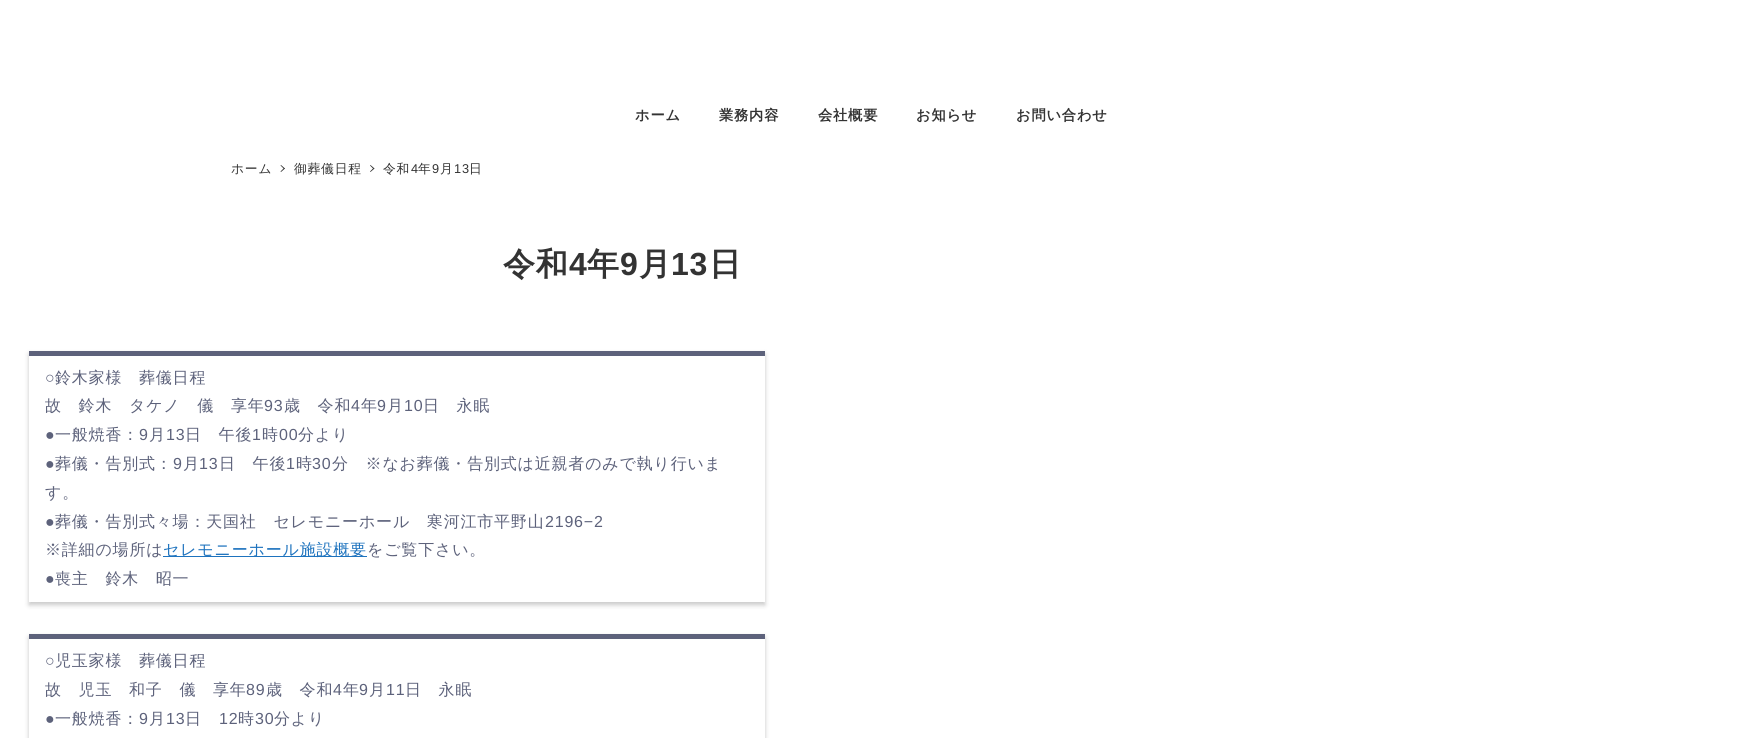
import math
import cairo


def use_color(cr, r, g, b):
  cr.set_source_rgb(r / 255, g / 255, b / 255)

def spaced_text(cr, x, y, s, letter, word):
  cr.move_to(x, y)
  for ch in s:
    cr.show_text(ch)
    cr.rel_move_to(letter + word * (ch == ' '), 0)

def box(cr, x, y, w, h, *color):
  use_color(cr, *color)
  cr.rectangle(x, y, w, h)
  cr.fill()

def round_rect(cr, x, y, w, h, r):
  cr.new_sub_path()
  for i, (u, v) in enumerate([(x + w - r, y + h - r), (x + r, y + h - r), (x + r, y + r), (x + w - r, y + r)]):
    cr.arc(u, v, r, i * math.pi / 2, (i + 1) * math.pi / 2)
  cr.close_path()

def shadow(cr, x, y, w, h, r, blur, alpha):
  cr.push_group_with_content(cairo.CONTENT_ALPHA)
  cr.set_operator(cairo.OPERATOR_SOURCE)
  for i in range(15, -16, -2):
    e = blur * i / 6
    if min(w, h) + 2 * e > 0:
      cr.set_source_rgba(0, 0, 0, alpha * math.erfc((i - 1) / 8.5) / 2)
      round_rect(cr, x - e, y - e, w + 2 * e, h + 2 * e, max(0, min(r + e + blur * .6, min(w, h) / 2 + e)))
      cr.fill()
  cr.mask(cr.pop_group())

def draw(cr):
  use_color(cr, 255, 255, 255)
  cr.paint()
  use_color(cr, 51, 51, 51)
  cr.new_path()
  cr.move_to(281, 165)
  cr.line_to(285, 168.5)
  cr.line_to(284, 169)
  cr.line_to(280.5, 165.5)
  cr.close_path()
  cr.fill()
  cr.new_path()
  cr.move_to(284, 168)
  cr.line_to(285, 168.5)
  cr.line_to(281, 172)
  cr.line_to(280.5, 171.5)
  cr.close_path()
  cr.fill()
  cr.new_path()
  cr.move_to(370.5, 165)
  cr.line_to(374.5, 168.5)
  cr.line_to(373.5, 169)
  cr.line_to(370, 165.5)
  cr.close_path()
  cr.fill()
  cr.new_path()
  cr.move_to(373.5, 168)
  cr.line_to(374.5, 168.5)
  cr.line_to(370.5, 172)
  cr.line_to(370, 171.5)
  cr.close_path()
  cr.fill()
  cr.save()
  cr.set_fill_rule(cairo.FILL_RULE_EVEN_ODD)
  cr.new_path()
  cr.move_to(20, 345)
  cr.line_to(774, 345)
  cr.line_to(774, 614)
  cr.line_to(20, 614)
  cr.close_path()
  cr.move_to(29, 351)
  cr.line_to(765, 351)
  cr.line_to(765, 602)
  cr.line_to(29, 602)
  cr.close_path()
  cr.clip()
  use_color(cr, 0, 0, 0)
  shadow(cr, 29, 354, 736, 251, 0, 2.5, 0.22)
  cr.restore()
  box(cr, 29, 351, 736, 5, 93, 98, 123)
  box(cr, 163, 556, 204, 1, 30, 115, 190)
  cr.save()
  cr.set_fill_rule(cairo.FILL_RULE_EVEN_ODD)
  cr.new_path()
  cr.move_to(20, 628)
  cr.line_to(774, 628)
  cr.line_to(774, 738)
  cr.line_to(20, 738)
  cr.close_path()
  cr.move_to(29, 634)
  cr.line_to(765, 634)
  cr.line_to(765, 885)
  cr.line_to(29, 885)
  cr.close_path()
  cr.clip()
  use_color(cr, 0, 0, 0)
  shadow(cr, 29, 637, 736, 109, 0, 2.5, 0.22)
  cr.restore()
  box(cr, 29, 634, 736, 5, 93, 98, 123)
  cr.select_font_face("WenQuanYi Zen Hei", cairo.FONT_SLANT_NORMAL, cairo.FONT_WEIGHT_BOLD)
  cr.set_font_size(14.25)
  use_color(cr, 51, 51, 51)
  spaced_text(cr, 635, 120, "ホーム", 0.8, 0)
  spaced_text(cr, 719, 120, "業務内容", 0.8, 0)
  spaced_text(cr, 818, 120, "会社概要", 0.8, 0)
  spaced_text(cr, 916, 120, "お知らせ", 0.8, 0)
  spaced_text(cr, 1016, 120, "お問い合わせ", 0.8, 0)
  cr.select_font_face("WenQuanYi Zen Hei Medium")
  cr.set_font_size(12.75)
  spaced_text(cr, 231, 173, "ホーム", 0.8, 0)
  spaced_text(cr, 294, 173, "御葬儀日程", 0.8, 0)
  spaced_text(cr, 383, 173, "令和", 0.8, 0)
  cr.select_font_face("Liberation Sans")
  spaced_text(cr, 411, 173, "4", 0.8, 0)
  cr.select_font_face("WenQuanYi Zen Hei Medium")
  spaced_text(cr, 418, 173, "年", 0.8, 0)
  cr.select_font_face("Liberation Sans")
  spaced_text(cr, 432, 173, "9", 0.8, 0)
  cr.select_font_face("WenQuanYi Zen Hei Medium")
  spaced_text(cr, 440, 173, "月", 0.8, 0)
  cr.select_font_face("Liberation Sans")
  spaced_text(cr, 454, 173, "13", 0.8, 0)
  cr.select_font_face("WenQuanYi Zen Hei Medium")
  spaced_text(cr, 469, 173, "日", 0.8, 0)
  cr.select_font_face("WenQuanYi Zen Hei", cairo.FONT_SLANT_NORMAL, cairo.FONT_WEIGHT_BOLD)
  cr.set_font_size(32)
  spaced_text(cr, 503, 275, "令和", 0.8, 0)
  cr.select_font_face("Liberation Sans", cairo.FONT_SLANT_NORMAL, cairo.FONT_WEIGHT_BOLD)
  spaced_text(cr, 569, 275, "4", 0.8, 0)
  cr.select_font_face("WenQuanYi Zen Hei", cairo.FONT_SLANT_NORMAL, cairo.FONT_WEIGHT_BOLD)
  spaced_text(cr, 587, 275, "年", 0.8, 0)
  cr.select_font_face("Liberation Sans", cairo.FONT_SLANT_NORMAL, cairo.FONT_WEIGHT_BOLD)
  spaced_text(cr, 620, 275, "9", 0.8, 0)
  cr.select_font_face("WenQuanYi Zen Hei", cairo.FONT_SLANT_NORMAL, cairo.FONT_WEIGHT_BOLD)
  spaced_text(cr, 639, 275, "月", 0.8, 0)
  cr.select_font_face("Liberation Sans", cairo.FONT_SLANT_NORMAL, cairo.FONT_WEIGHT_BOLD)
  spaced_text(cr, 671, 275, "13", 0.8, 0)
  cr.select_font_face("WenQuanYi Zen Hei", cairo.FONT_SLANT_NORMAL, cairo.FONT_WEIGHT_BOLD)
  spaced_text(cr, 709, 275, "日", 0.8, 0)
  cr.select_font_face("Liberation Sans")
  cr.set_font_size(16)
  use_color(cr, 93, 98, 123)
  spaced_text(cr, 45, 383, "○", 0.8, 0)
  cr.select_font_face("WenQuanYi Zen Hei Medium")
  spaced_text(cr, 55, 383, "鈴木家様　葬儀日程", 0.8, 0)
  spaced_text(cr, 45, 411, "故　鈴木　タケノ　儀　享年", 0.8, 0)
  cr.select_font_face("Liberation Sans")
  spaced_text(cr, 264, 411, "93", 0.8, 0)
  cr.select_font_face("WenQuanYi Zen Hei Medium")
  spaced_text(cr, 284, 411, "歳　令和", 0.8, 0)
  cr.select_font_face("Liberation Sans")
  spaced_text(cr, 351, 411, "4", 0.8, 0)
  cr.select_font_face("WenQuanYi Zen Hei Medium")
  spaced_text(cr, 361, 411, "年", 0.8, 0)
  cr.select_font_face("Liberation Sans")
  spaced_text(cr, 377, 411, "9", 0.8, 0)
  cr.select_font_face("WenQuanYi Zen Hei Medium")
  spaced_text(cr, 387, 411, "月", 0.8, 0)
  cr.select_font_face("Liberation Sans")
  spaced_text(cr, 404, 411, "10", 0.8, 0)
  cr.select_font_face("WenQuanYi Zen Hei Medium")
  spaced_text(cr, 423, 411, "日　永眠", 0.8, 0)
  cr.select_font_face("Liberation Sans")
  spaced_text(cr, 45, 440, "●", 0.8, 0)
  cr.select_font_face("WenQuanYi Zen Hei Medium")
  spaced_text(cr, 55, 440, "一般焼香：", 0.8, 0)
  cr.select_font_face("Liberation Sans")
  spaced_text(cr, 139, 440, "9", 0.8, 0)
  cr.select_font_face("WenQuanYi Zen Hei Medium")
  spaced_text(cr, 149, 440, "月", 0.8, 0)
  cr.select_font_face("Liberation Sans")
  spaced_text(cr, 166, 440, "13", 0.8, 0)
  cr.select_font_face("WenQuanYi Zen Hei Medium")
  spaced_text(cr, 185, 440, "日　午後", 0.8, 0)
  cr.select_font_face("Liberation Sans")
  spaced_text(cr, 252, 440, "1", 0.8, 0)
  cr.select_font_face("WenQuanYi Zen Hei Medium")
  spaced_text(cr, 262, 440, "時", 0.8, 0)
  cr.select_font_face("Liberation Sans")
  spaced_text(cr, 279, 440, "00", 0.8, 0)
  cr.select_font_face("WenQuanYi Zen Hei Medium")
  spaced_text(cr, 298, 440, "分より", 0.8, 0)
  cr.select_font_face("Liberation Sans")
  spaced_text(cr, 45, 469, "●", 0.8, 0)
  cr.select_font_face("WenQuanYi Zen Hei Medium")
  spaced_text(cr, 55, 469, "葬儀・告別式：", 0.8, 0)
  cr.select_font_face("Liberation Sans")
  spaced_text(cr, 173, 469, "9", 0.8, 0)
  cr.select_font_face("WenQuanYi Zen Hei Medium")
  spaced_text(cr, 183, 469, "月", 0.8, 0)
  cr.select_font_face("Liberation Sans")
  spaced_text(cr, 199, 469, "13", 0.8, 0)
  cr.select_font_face("WenQuanYi Zen Hei Medium")
  spaced_text(cr, 219, 469, "日　午後", 0.8, 0)
  cr.select_font_face("Liberation Sans")
  spaced_text(cr, 286, 469, "1", 0.8, 0)
  cr.select_font_face("WenQuanYi Zen Hei Medium")
  spaced_text(cr, 296, 469, "時", 0.8, 0)
  cr.select_font_face("Liberation Sans")
  spaced_text(cr, 312, 469, "30", 0.8, 0)
  cr.select_font_face("WenQuanYi Zen Hei Medium")
  spaced_text(cr, 332, 469, "分　※なお葬儀・告別式は近親者のみで執り行いま", 0.8, 0)
  spaced_text(cr, 45, 498, "す。", 0.8, 0)
  cr.select_font_face("Liberation Sans")
  spaced_text(cr, 45, 527, "●", 0.8, 0)
  cr.select_font_face("WenQuanYi Zen Hei Medium")
  spaced_text(cr, 55, 527, "葬儀・告別式々場：天国社　セレモニーホール　寒河江市平野山", 0.8, 0)
  cr.select_font_face("Liberation Sans")
  spaced_text(cr, 545, 527, "2196−2", 0.8, 0)
  cr.select_font_face("WenQuanYi Zen Hei Medium")
  spaced_text(cr, 45, 555, "※詳細の場所は", 0.8, 0)
  use_color(cr, 30, 115, 190)
  spaced_text(cr, 163, 555, "セレモニーホール施設概要", 0.8, 0)
  use_color(cr, 93, 98, 123)
  spaced_text(cr, 367, 555, "をご覧下さい。", 0.8, 0)
  cr.select_font_face("Liberation Sans")
  spaced_text(cr, 45, 584, "●", 0.8, 0)
  cr.select_font_face("WenQuanYi Zen Hei Medium")
  spaced_text(cr, 55, 584, "喪主　鈴木　昭一", 0.8, 0)
  cr.select_font_face("Liberation Sans")
  spaced_text(cr, 45, 666, "○", 0.8, 0)
  cr.select_font_face("WenQuanYi Zen Hei Medium")
  spaced_text(cr, 55, 666, "児玉家様　葬儀日程", 0.8, 0)
  spaced_text(cr, 45, 695, "故　児玉　和子　儀　享年", 0.8, 0)
  cr.select_font_face("Liberation Sans")
  spaced_text(cr, 246, 695, "89", 0.8, 0)
  cr.select_font_face("WenQuanYi Zen Hei Medium")
  spaced_text(cr, 266, 695, "歳　令和", 0.8, 0)
  cr.select_font_face("Liberation Sans")
  spaced_text(cr, 333, 695, "4", 0.8, 0)
  cr.select_font_face("WenQuanYi Zen Hei Medium")
  spaced_text(cr, 343, 695, "年", 0.8, 0)
  cr.select_font_face("Liberation Sans")
  spaced_text(cr, 359, 695, "9", 0.8, 0)
  cr.select_font_face("WenQuanYi Zen Hei Medium")
  spaced_text(cr, 369, 695, "月", 0.8, 0)
  cr.select_font_face("Liberation Sans")
  spaced_text(cr, 386, 695, "11", 0.8, 0)
  cr.select_font_face("WenQuanYi Zen Hei Medium")
  spaced_text(cr, 405, 695, "日　永眠", 0.8, 0)
  cr.select_font_face("Liberation Sans")
  spaced_text(cr, 45, 724, "●", 0.8, 0)
  cr.select_font_face("WenQuanYi Zen Hei Medium")
  spaced_text(cr, 55, 724, "一般焼香：", 0.8, 0)
  cr.select_font_face("Liberation Sans")
  spaced_text(cr, 139, 724, "9", 0.8, 0)
  cr.select_font_face("WenQuanYi Zen Hei Medium")
  spaced_text(cr, 149, 724, "月", 0.8, 0)
  cr.select_font_face("Liberation Sans")
  spaced_text(cr, 166, 724, "13", 0.8, 0)
  cr.select_font_face("WenQuanYi Zen Hei Medium")
  spaced_text(cr, 185, 724, "日", 0.8, 0)
  cr.select_font_face("Liberation Sans")
  spaced_text(cr, 219, 724, "12", 0.8, 0)
  cr.select_font_face("WenQuanYi Zen Hei Medium")
  spaced_text(cr, 238, 724, "時", 0.8, 0)
  cr.select_font_face("Liberation Sans")
  spaced_text(cr, 255, 724, "30", 0.8, 0)
  cr.select_font_face("WenQuanYi Zen Hei Medium")
  spaced_text(cr, 274, 724, "分より", 0.8, 0)


surface = cairo.ImageSurface(cairo.FORMAT_RGB24, 1742, 738)
cr = cairo.Context(surface)
options = cairo.FontOptions()
options.set_hint_metrics(cairo.HINT_METRICS_OFF)
options.set_hint_style(cairo.HINT_STYLE_NONE)
cr.set_font_options(options)
cr.set_miter_limit(4)
draw(cr)
surface.write_to_png("out.png")
